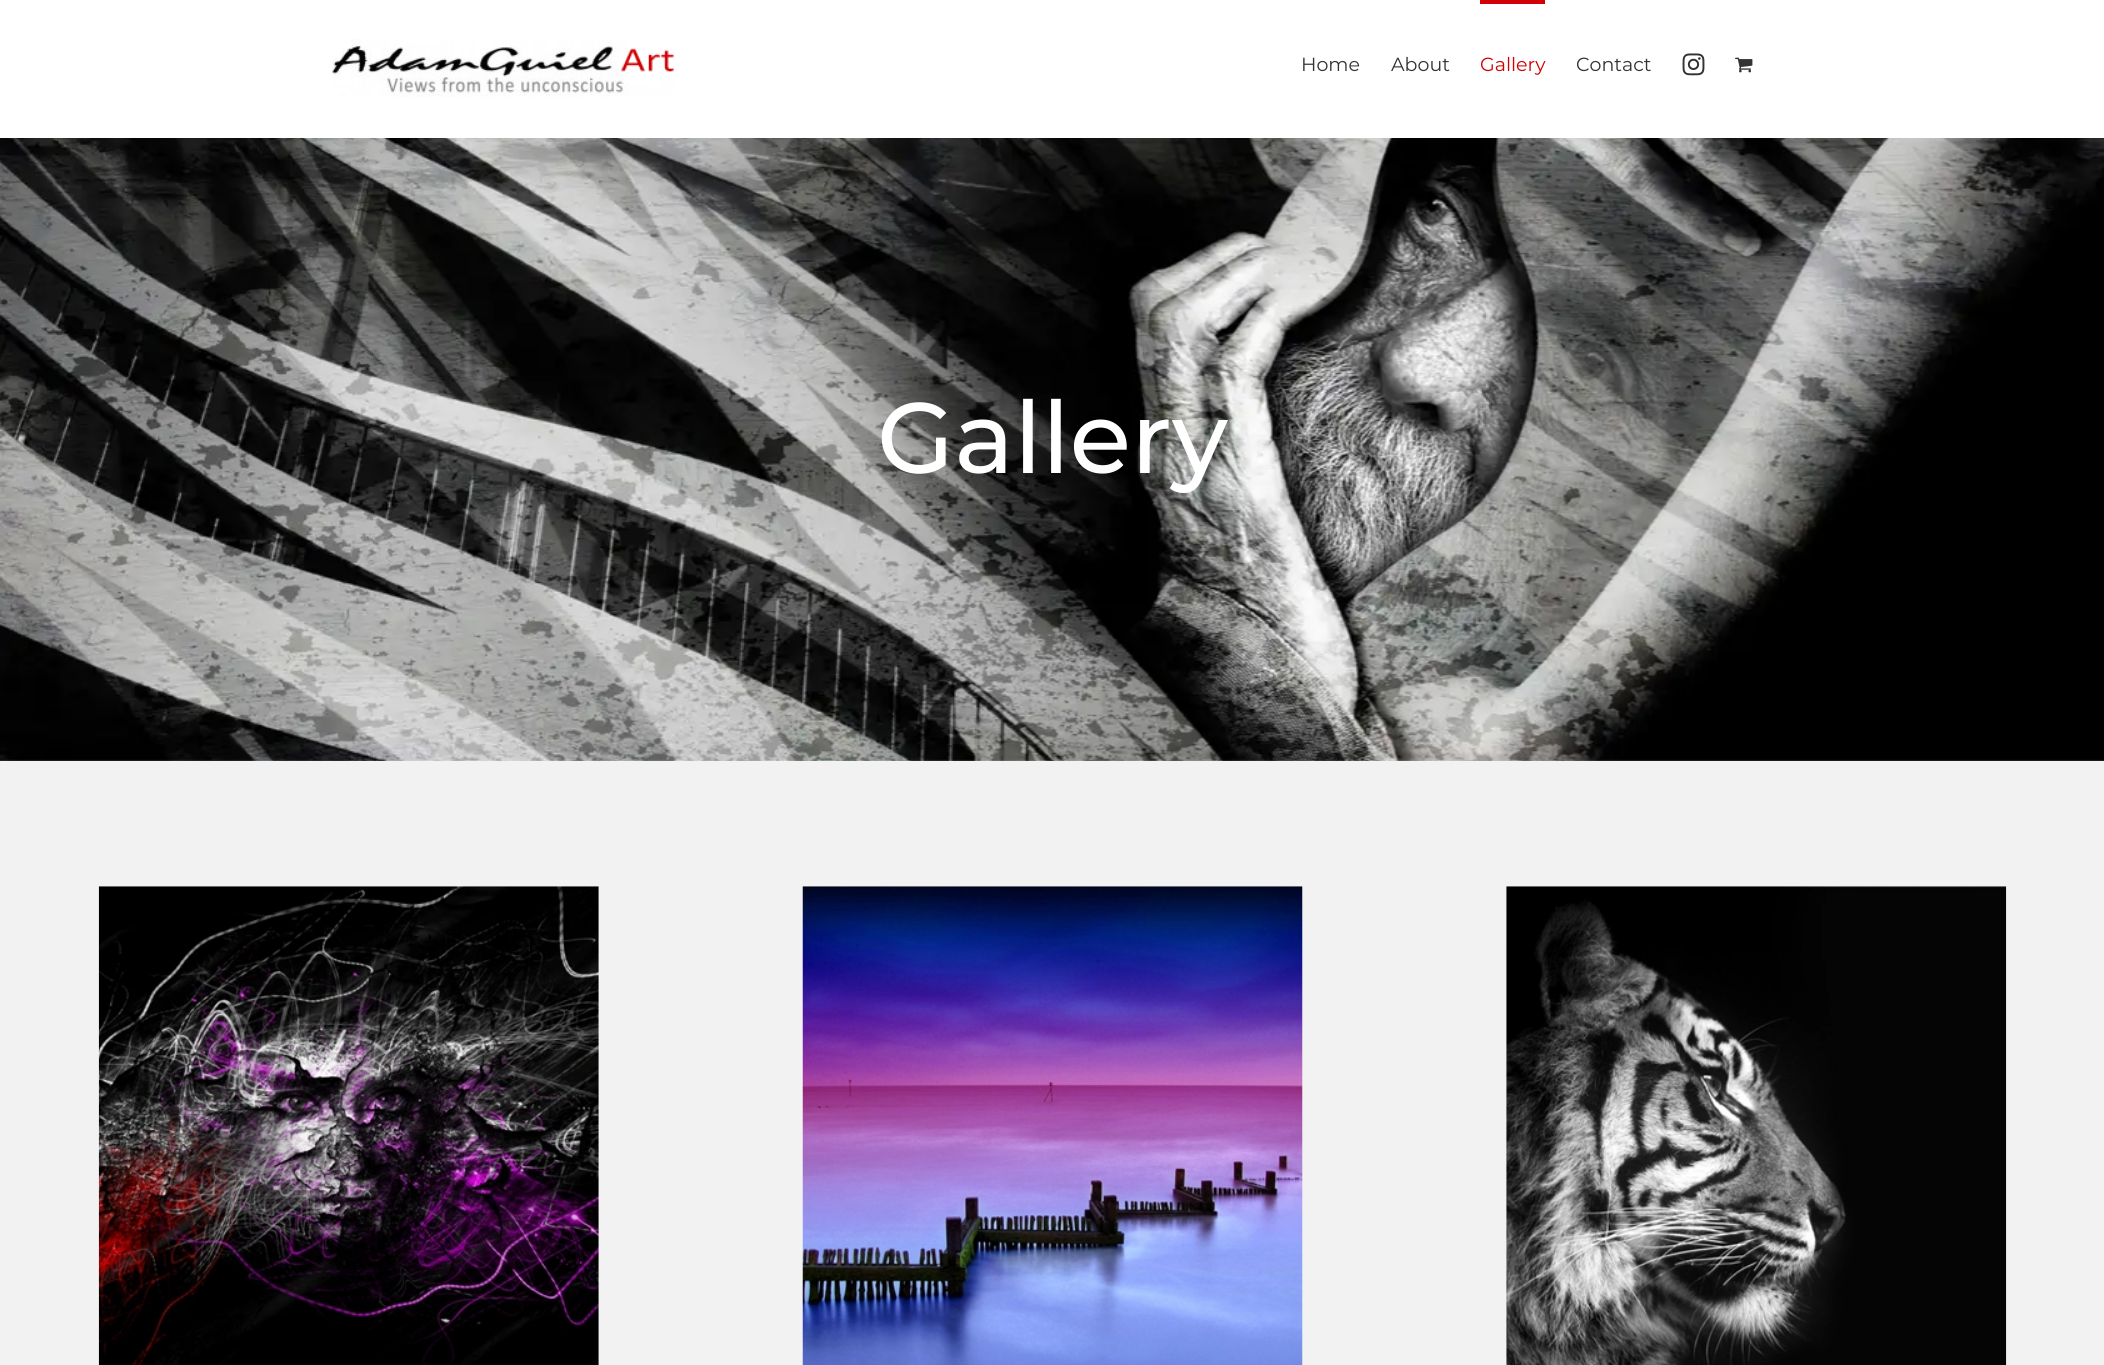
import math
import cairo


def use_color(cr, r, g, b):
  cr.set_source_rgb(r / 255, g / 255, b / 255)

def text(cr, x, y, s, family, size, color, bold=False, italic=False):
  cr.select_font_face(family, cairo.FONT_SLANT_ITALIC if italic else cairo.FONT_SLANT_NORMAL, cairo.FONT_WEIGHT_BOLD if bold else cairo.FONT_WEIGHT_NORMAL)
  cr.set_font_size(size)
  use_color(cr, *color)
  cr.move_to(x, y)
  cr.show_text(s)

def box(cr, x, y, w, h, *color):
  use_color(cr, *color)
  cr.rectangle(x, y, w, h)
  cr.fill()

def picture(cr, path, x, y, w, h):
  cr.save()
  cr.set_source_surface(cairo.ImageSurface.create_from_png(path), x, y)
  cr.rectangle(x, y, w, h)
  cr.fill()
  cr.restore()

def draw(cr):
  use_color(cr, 255, 255, 255)
  cr.paint()
  picture(cr, "img_01.png", 332, 39, 342, 58)
  box(cr, 1480, 0, 65, 4, 208, 0, 4)
  picture(cr, "img_02.png", 1682, 53, 23, 23)
  picture(cr, "img_03.png", 1735, 57, 18, 16)
  picture(cr, "img_04.png", 0, 138, 2104, 623)
  box(cr, 0, 761, 2104, 604, 242, 242, 242)
  picture(cr, "img_05.png", 98, 886, 501, 479)
  picture(cr, "img_06.png", 802, 886, 501, 479)
  picture(cr, "img_07.png", 1506, 886, 501, 479)
  text(cr, 1301, 71, "Home", "Montserrat", 19, (51, 51, 51))
  text(cr, 1391, 71, "About", "Montserrat", 19, (51, 51, 51))
  text(cr, 1480, 71, "Gallery", "Montserrat", 19, (208, 0, 4))
  text(cr, 1576, 71, "Contact", "Montserrat", 19, (51, 51, 51))
  text(cr, 877, 473, "Gallery", "Montserrat Medium", 100, (255, 255, 255))


surface = cairo.ImageSurface(cairo.FORMAT_RGB24, 2104, 1365)
cr = cairo.Context(surface)
options = cairo.FontOptions()
options.set_hint_metrics(cairo.HINT_METRICS_OFF)
options.set_hint_style(cairo.HINT_STYLE_NONE)
cr.set_font_options(options)
cr.set_miter_limit(4)
draw(cr)
surface.write_to_png("out.png")
